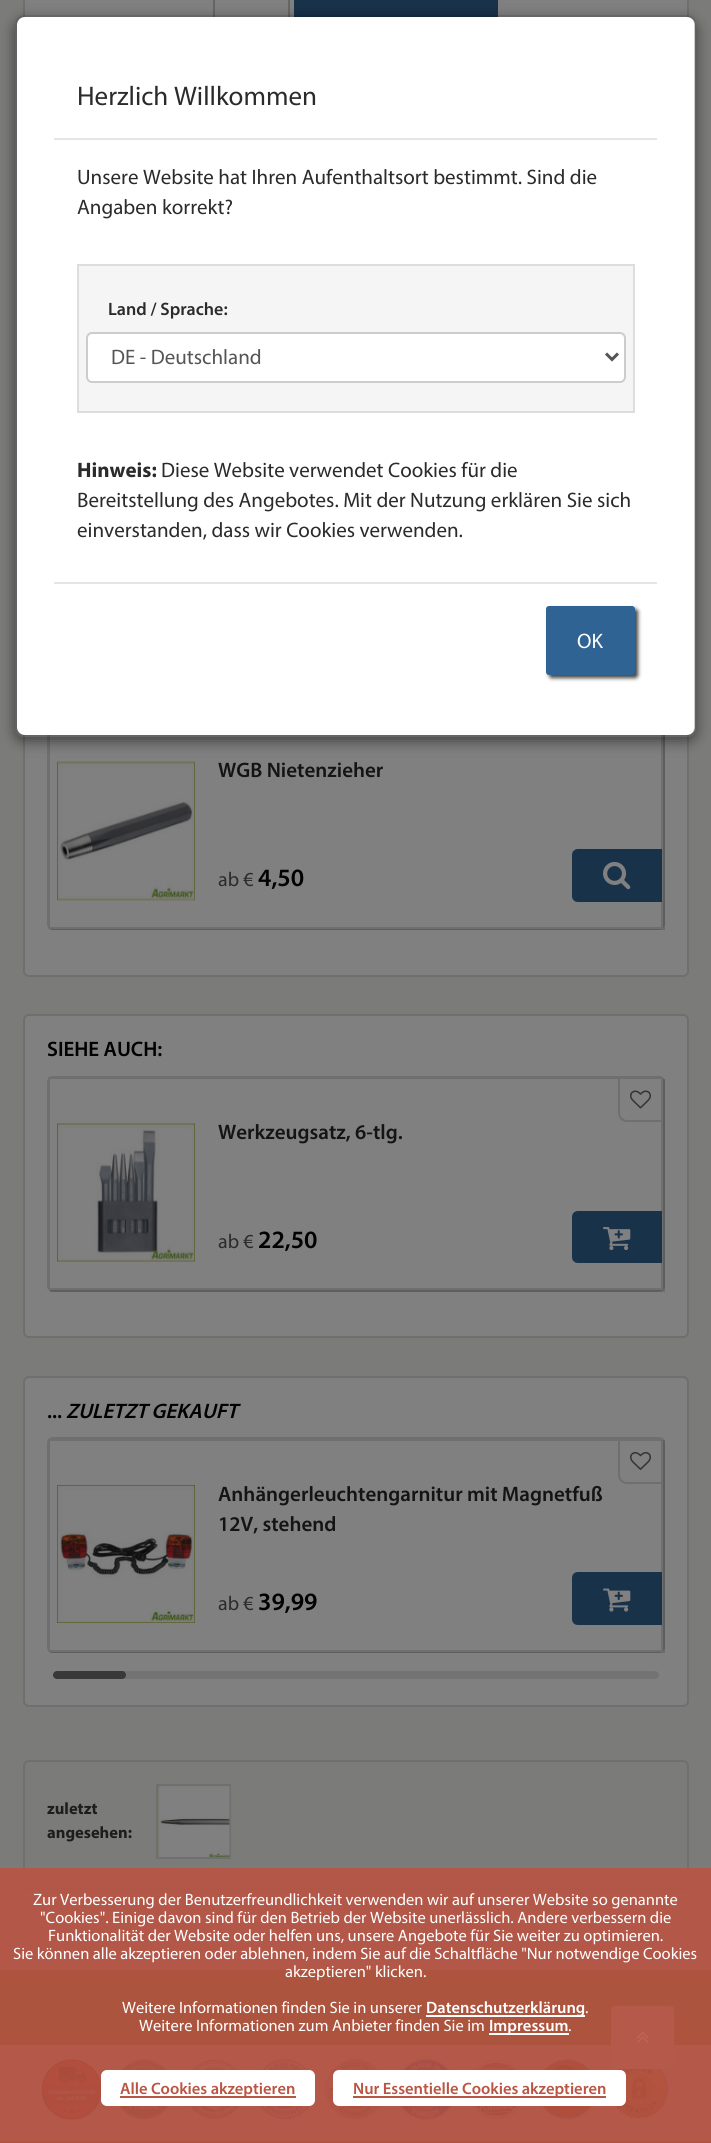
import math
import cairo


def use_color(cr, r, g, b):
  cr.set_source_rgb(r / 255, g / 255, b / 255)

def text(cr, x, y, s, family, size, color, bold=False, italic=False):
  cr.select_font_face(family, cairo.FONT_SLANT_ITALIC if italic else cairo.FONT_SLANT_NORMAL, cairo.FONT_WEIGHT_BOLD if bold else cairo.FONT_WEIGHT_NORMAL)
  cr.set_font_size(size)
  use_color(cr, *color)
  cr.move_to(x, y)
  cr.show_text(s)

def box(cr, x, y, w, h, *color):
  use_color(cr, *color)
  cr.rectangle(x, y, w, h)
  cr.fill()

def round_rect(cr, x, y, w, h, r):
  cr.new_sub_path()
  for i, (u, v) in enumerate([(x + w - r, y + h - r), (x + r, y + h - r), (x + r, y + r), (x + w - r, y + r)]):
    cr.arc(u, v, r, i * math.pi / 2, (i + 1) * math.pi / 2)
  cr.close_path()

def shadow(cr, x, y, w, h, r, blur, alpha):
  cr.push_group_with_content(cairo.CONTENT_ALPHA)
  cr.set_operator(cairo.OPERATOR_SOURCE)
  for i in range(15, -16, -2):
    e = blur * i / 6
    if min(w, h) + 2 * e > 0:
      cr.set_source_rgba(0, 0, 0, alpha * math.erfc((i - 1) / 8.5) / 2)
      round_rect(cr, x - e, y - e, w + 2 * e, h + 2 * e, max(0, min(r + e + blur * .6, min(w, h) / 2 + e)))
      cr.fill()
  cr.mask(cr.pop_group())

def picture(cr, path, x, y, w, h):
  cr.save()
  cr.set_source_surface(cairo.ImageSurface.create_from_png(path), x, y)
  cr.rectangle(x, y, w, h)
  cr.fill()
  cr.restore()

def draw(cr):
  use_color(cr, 123, 123, 122)
  cr.paint()
  box(cr, 25, 0, 662, 17, 128, 128, 128)
  cr.rectangle(24, -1, 664, 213)
  use_color(cr, 111, 111, 111)
  cr.stroke()
  cr.rectangle(214, -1, 75, 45)
  use_color(cr, 102, 102, 102)
  cr.stroke()
  box(cr, 296, 0, 200, 17, 24, 50, 74)
  cr.rectangle(295, -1, 202, 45)
  cr.stroke()
  use_color(cr, 128, 128, 128)
  round_rect(cr, 24, 652, 664, 324, 5)
  cr.fill_preserve()
  use_color(cr, 111, 111, 111)
  cr.stroke()
  round_rect(cr, 48, 715, 616, 214, 5)
  cr.stroke()
  cr.set_source_rgba(0, 0, 0, 0.15)
  cr.new_path()
  cr.move_to(50, 928)
  cr.line_to(50, 930)
  cr.line_to(665, 930)
  cr.line_to(665, 717)
  cr.line_to(663, 717)
  cr.line_to(663, 928)
  cr.close_path()
  cr.fill()
  cr.rectangle(49, 717, 613, 211)
  use_color(cr, 111, 111, 111)
  cr.stroke()
  picture(cr, "img_01.png", 57, 761, 138, 140)
  cr.save()
  cr.set_fill_rule(cairo.FILL_RULE_EVEN_ODD)
  cr.new_path()
  cr.move_to(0, 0)
  cr.line_to(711, 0)
  cr.line_to(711, 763)
  cr.line_to(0, 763)
  cr.close_path()
  cr.move_to(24, 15)
  cr.line_to(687, 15)
  cr.curve_to(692, 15, 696, 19, 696, 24)
  cr.line_to(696, 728)
  cr.curve_to(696, 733, 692, 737, 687, 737)
  cr.line_to(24, 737)
  cr.curve_to(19, 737, 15, 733, 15, 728)
  cr.line_to(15, 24)
  cr.curve_to(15, 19, 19, 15, 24, 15)
  cr.close_path()
  cr.clip()
  use_color(cr, 0, 0, 0)
  shadow(cr, 15, 20, 681, 721, 9, 7, 0.5)
  cr.restore()
  use_color(cr, 255, 255, 255)
  round_rect(cr, 17, 17, 678, 718, 8)
  cr.fill()
  round_rect(cr, 16, 16, 679, 720, 8)
  cr.set_source_rgba(0, 0, 0, 0.2)
  cr.stroke()
  box(cr, 54, 138, 603, 2, 229, 229, 229)
  use_color(cr, 245, 245, 245)
  cr.rectangle(78, 265, 556, 147)
  cr.fill_preserve()
  use_color(cr, 221, 221, 221)
  cr.stroke()
  use_color(cr, 255, 255, 255)
  round_rect(cr, 86, 332, 540, 51, 6)
  cr.fill()
  use_color(cr, 236, 236, 236)
  cr.new_path()
  cr.move_to(92, 334)
  cr.line_to(620, 334)
  cr.curve_to(622, 334, 624, 337, 624, 339)
  cr.curve_to(624, 336, 622, 333, 619, 333)
  cr.line_to(92, 333)
  cr.curve_to(89, 333, 87, 336, 87, 339)
  cr.curve_to(87, 337, 89, 334, 92, 334)
  cr.close_path()
  cr.fill()
  round_rect(cr, 87, 333, 538, 49, 5)
  use_color(cr, 204, 204, 204)
  cr.stroke()
  cr.new_path()
  cr.move_to(606, 353.5)
  cr.line_to(612, 359.5)
  cr.line_to(618, 353.5)
  use_color(cr, 85, 85, 85)
  cr.set_line_width(3)
  cr.stroke()
  box(cr, 54, 582, 603, 2, 229, 229, 229)
  use_color(cr, 0, 0, 0)
  shadow(cr, 549, 609, 89, 69, 3, 2, 0.75)
  use_color(cr, 47, 99, 148)
  round_rect(cr, 547, 607, 87, 67, 2)
  cr.fill_preserve()
  cr.set_line_width(2)
  cr.stroke()
  use_color(cr, 24, 50, 74)
  cr.new_path()
  cr.move_to(578, 850)
  cr.line_to(661, 850)
  cr.line_to(661, 901)
  cr.line_to(578, 901)
  cr.curve_to(575, 901, 573, 899, 573, 896)
  cr.line_to(573, 855)
  cr.curve_to(573, 852, 575, 850, 578, 850)
  cr.close_path()
  cr.fill_preserve()
  cr.stroke()
  picture(cr, "img_02.png", 603, 861, 28, 29)
  use_color(cr, 128, 128, 128)
  round_rect(cr, 24, 1015, 664, 322, 5)
  cr.fill_preserve()
  use_color(cr, 111, 111, 111)
  cr.stroke()
  round_rect(cr, 48, 1077, 616, 214, 5)
  cr.stroke()
  cr.set_source_rgba(0, 0, 0, 0.15)
  cr.new_path()
  cr.move_to(50, 1290)
  cr.line_to(50, 1292)
  cr.line_to(665, 1292)
  cr.line_to(665, 1079)
  cr.line_to(663, 1079)
  cr.line_to(663, 1290)
  cr.close_path()
  cr.fill()
  cr.rectangle(49, 1078, 613, 211)
  use_color(cr, 111, 111, 111)
  cr.stroke()
  use_color(cr, 128, 128, 128)
  cr.new_path()
  cr.move_to(619, 1078)
  cr.line_to(662, 1078)
  cr.line_to(662, 1121)
  cr.line_to(627, 1121)
  cr.curve_to(622.5, 1121, 619, 1117.5, 619, 1113)
  cr.close_path()
  cr.fill_preserve()
  use_color(cr, 111, 111, 111)
  cr.stroke()
  picture(cr, "img_03.png", 630, 1090, 21, 19)
  picture(cr, "img_04.png", 57, 1123, 138, 139)
  use_color(cr, 24, 50, 74)
  cr.new_path()
  cr.move_to(578, 1212)
  cr.line_to(661, 1212)
  cr.line_to(661, 1262)
  cr.line_to(578, 1262)
  cr.curve_to(575, 1262, 573, 1260, 573, 1257)
  cr.line_to(573, 1217)
  cr.curve_to(573, 1214, 575, 1212, 578, 1212)
  cr.close_path()
  cr.fill_preserve()
  cr.stroke()
  picture(cr, "img_05.png", 603, 1227, 28, 24)
  use_color(cr, 128, 128, 128)
  round_rect(cr, 24, 1377, 664, 329, 5)
  cr.fill_preserve()
  use_color(cr, 111, 111, 111)
  cr.stroke()
  round_rect(cr, 48, 1438, 616, 214, 5)
  cr.stroke()
  cr.set_source_rgba(0, 0, 0, 0.15)
  cr.new_path()
  cr.move_to(50, 1652)
  cr.line_to(50, 1653)
  cr.line_to(665, 1653)
  cr.line_to(665, 1440)
  cr.line_to(663, 1440)
  cr.line_to(663, 1652)
  cr.close_path()
  cr.fill()
  cr.rectangle(49, 1440, 613, 211)
  use_color(cr, 111, 111, 111)
  cr.stroke()
  use_color(cr, 128, 128, 128)
  cr.new_path()
  cr.move_to(619, 1440)
  cr.line_to(662, 1440)
  cr.line_to(662, 1483)
  cr.line_to(627, 1483)
  cr.curve_to(622.5, 1483, 619, 1479.5, 619, 1475)
  cr.close_path()
  cr.fill_preserve()
  use_color(cr, 111, 111, 111)
  cr.stroke()
  picture(cr, "img_06.png", 630, 1452, 21, 18)
  picture(cr, "img_07.png", 57, 1485, 138, 138)
  use_color(cr, 24, 50, 74)
  cr.new_path()
  cr.move_to(578, 1573)
  cr.line_to(661, 1573)
  cr.line_to(661, 1624)
  cr.line_to(578, 1624)
  cr.curve_to(575, 1624, 573, 1622, 573, 1619)
  cr.line_to(573, 1578)
  cr.curve_to(573, 1575, 575, 1573, 578, 1573)
  cr.close_path()
  cr.fill_preserve()
  cr.stroke()
  picture(cr, "img_08.png", 603, 1588, 28, 24)
  use_color(cr, 115, 115, 115)
  round_rect(cr, 53, 1671, 606, 8, 4)
  cr.fill()
  cr.set_source_rgba(0, 0, 0, 0.5)
  round_rect(cr, 53, 1671, 73, 8, 4)
  cr.fill()
  round_rect(cr, 24, 1761, 664, 128, 5)
  use_color(cr, 111, 111, 111)
  cr.stroke()
  cr.rectangle(157, 1785, 73, 73)
  cr.stroke()
  picture(cr, "img_09.png", 157, 1785, 73, 72)
  box(cr, 0, 1970, 711, 75, 52, 88, 25)
  box(cr, 0, 2045, 711, 97, 128, 128, 128)
  picture(cr, "img_10.png", 42, 2059, 59, 61)
  picture(cr, "img_11.png", 119, 2059, 50, 61)
  picture(cr, "img_12.png", 190, 2059, 49, 61)
  picture(cr, "img_13.png", 260, 2059, 51, 61)
  picture(cr, "img_14.png", 325, 2059, 56, 61)
  picture(cr, "img_15.png", 400, 2059, 52, 61)
  picture(cr, "img_16.png", 472, 2060, 49, 59)
  picture(cr, "img_17.png", 542, 2059, 50, 61)
  picture(cr, "img_18.png", 615, 2069, 54, 51)
  box(cr, 0, 2142, 711, 1, 52, 88, 25)
  use_color(cr, 140, 140, 140)
  round_rect(cr, 612, 2007, 61, 61, 2)
  cr.fill_preserve()
  cr.stroke()
  picture(cr, "img_19.png", 637, 2031, 12, 12)
  cr.set_source_rgba(0.729, 0.329, 0.263, 0.9)
  cr.rectangle(0, 1868, 711, 275)
  cr.fill()
  box(cr, 426, 2015, 159, 2, 255, 255, 255)
  box(cr, 489, 2033, 80, 2, 255, 255, 255)
  round_rect(cr, 102, 2071, 212, 34, 5)
  cr.fill_preserve()
  cr.stroke()
  box(cr, 120, 2096, 176, 2, 186, 84, 67)
  use_color(cr, 255, 255, 255)
  round_rect(cr, 334, 2071, 291, 34, 5)
  cr.fill_preserve()
  cr.stroke()
  box(cr, 353, 2096, 253, 2, 186, 84, 67)
  text(cr, 77, 105, "Herzlich Willkommen", "Myriad", 27, (43, 43, 43))
  text(cr, 77, 184, "Unsere Website hat Ihren Aufenthaltsort bestimmt. Sind die", "Myriad", 21, (43, 43, 43))
  text(cr, 77, 214, "Angaben korrekt?", "Myriad", 21, (43, 43, 43))
  text(cr, 108, 315, "Land / Sprache:", "Myriad SemiBold", 18, (43, 43, 43))
  text(cr, 111, 364, "DE - Deutschland", "Myriad", 21, (85, 85, 85))
  text(cr, 77, 477, "Hinweis:", "Myriad", 21, (43, 43, 43), bold=True)
  text(cr, 161, 477, "Diese Website verwendet Cookies für die", "Myriad", 21, (43, 43, 43))
  text(cr, 77, 507, "Bereitstellung des Angebotes. Mit der Nutzung erklären Sie sich", "Myriad", 21, (43, 43, 43))
  text(cr, 77, 537, "einverstanden, dass wir Cookies verwenden.", "Myriad", 21, (43, 43, 43))
  text(cr, 577, 648, "OK", "Myriad", 21, (255, 255, 255))
  text(cr, 218, 777, "WGB Nietenzieher", "Myriad SemiBold", 21, (20, 20, 20))
  text(cr, 218, 886, "ab €", "Myriad", 20, (43, 43, 43))
  text(cr, 258, 886, "4,50", "Myriad SemiBold", 25, (1, 1, 1))
  text(cr, 47, 1056, "SIEHE AUCH:", "Myriad SemiBold", 21, (1, 1, 1))
  text(cr, 218, 1139, "Werkzeugsatz, 6-tlg.", "Myriad SemiBold", 21, (20, 20, 20))
  text(cr, 218, 1248, "ab €", "Myriad", 20, (43, 43, 43))
  text(cr, 258, 1248, "22,50", "Myriad SemiBold", 25, (1, 1, 1))
  text(cr, 47, 1418, "...", "Myriad SemiBold", 21, (1, 1, 1))
  text(cr, 66, 1418, "ZULETZT GEKAUFT", "Myriad SemiBold", 21, (1, 1, 1), italic=True)
  text(cr, 218, 1501, "Anhängerleuchtengarnitur mit Magnetfuß", "Myriad SemiBold", 21, (20, 20, 20))
  text(cr, 218, 1531, "12V, stehend", "Myriad SemiBold", 21, (20, 20, 20))
  text(cr, 218, 1610, "ab €", "Myriad", 20, (43, 43, 43))
  text(cr, 258, 1610, "39,99", "Myriad SemiBold", 25, (1, 1, 1))
  text(cr, 47, 1814, "zuletzt", "Myriad", 16.5, (29, 29, 29), bold=True)
  text(cr, 47, 1838, "angesehen:", "Myriad", 16.5, (29, 29, 29), bold=True)
  text(cr, 33, 1905, "Zur Verbesserung der Benutzerfreundlichkeit verwenden wir auf unserer Website so genannte", "Myriad", 16.5, (255, 255, 255))
  text(cr, 40, 1923, "\"Cookies\". Einige davon sind für den Betrieb der Website unerlässlich. Andere verbessern die", "Myriad", 16.5, (255, 255, 255))
  text(cr, 48, 1941, "Funktionalität der Website oder helfen uns, unsere Angebote für Sie weiter zu optimieren.", "Myriad", 16.5, (255, 255, 255))
  text(cr, 13, 1959, "Sie können alle akzeptieren oder ablehnen, indem Sie auf die Schaltfläche \"Nur notwendige Cookies", "Myriad", 16.5, (255, 255, 255))
  text(cr, 285, 1977, "akzeptieren\" klicken.", "Myriad", 16.5, (255, 255, 255))
  text(cr, 122, 2013, "Weitere Informationen finden Sie in unserer", "Myriad", 16.5, (255, 255, 255))
  text(cr, 426, 2013, "Datenschutzerklärung", "Myriad SemiBold", 16.5, (255, 255, 255))
  text(cr, 585, 2013, ".", "Myriad", 16.5, (255, 255, 255))
  text(cr, 139, 2031, "Weitere Informationen zum Anbieter finden Sie im", "Myriad", 16.5, (255, 255, 255))
  text(cr, 489, 2031, "Impressum", "Myriad SemiBold", 16.5, (255, 255, 255))
  text(cr, 568, 2031, ".", "Myriad", 16.5, (255, 255, 255))
  text(cr, 120, 2094, "Alle Cookies akzeptieren", "Myriad SemiBold", 16.5, (186, 84, 67))
  text(cr, 353, 2094, "Nur Essentielle Cookies akzeptieren", "Myriad SemiBold", 16.5, (186, 84, 67))


surface = cairo.ImageSurface(cairo.FORMAT_RGB24, 711, 2143)
cr = cairo.Context(surface)
options = cairo.FontOptions()
options.set_hint_metrics(cairo.HINT_METRICS_OFF)
options.set_hint_style(cairo.HINT_STYLE_NONE)
cr.set_font_options(options)
cr.set_miter_limit(4)
draw(cr)
surface.write_to_png("out.png")
